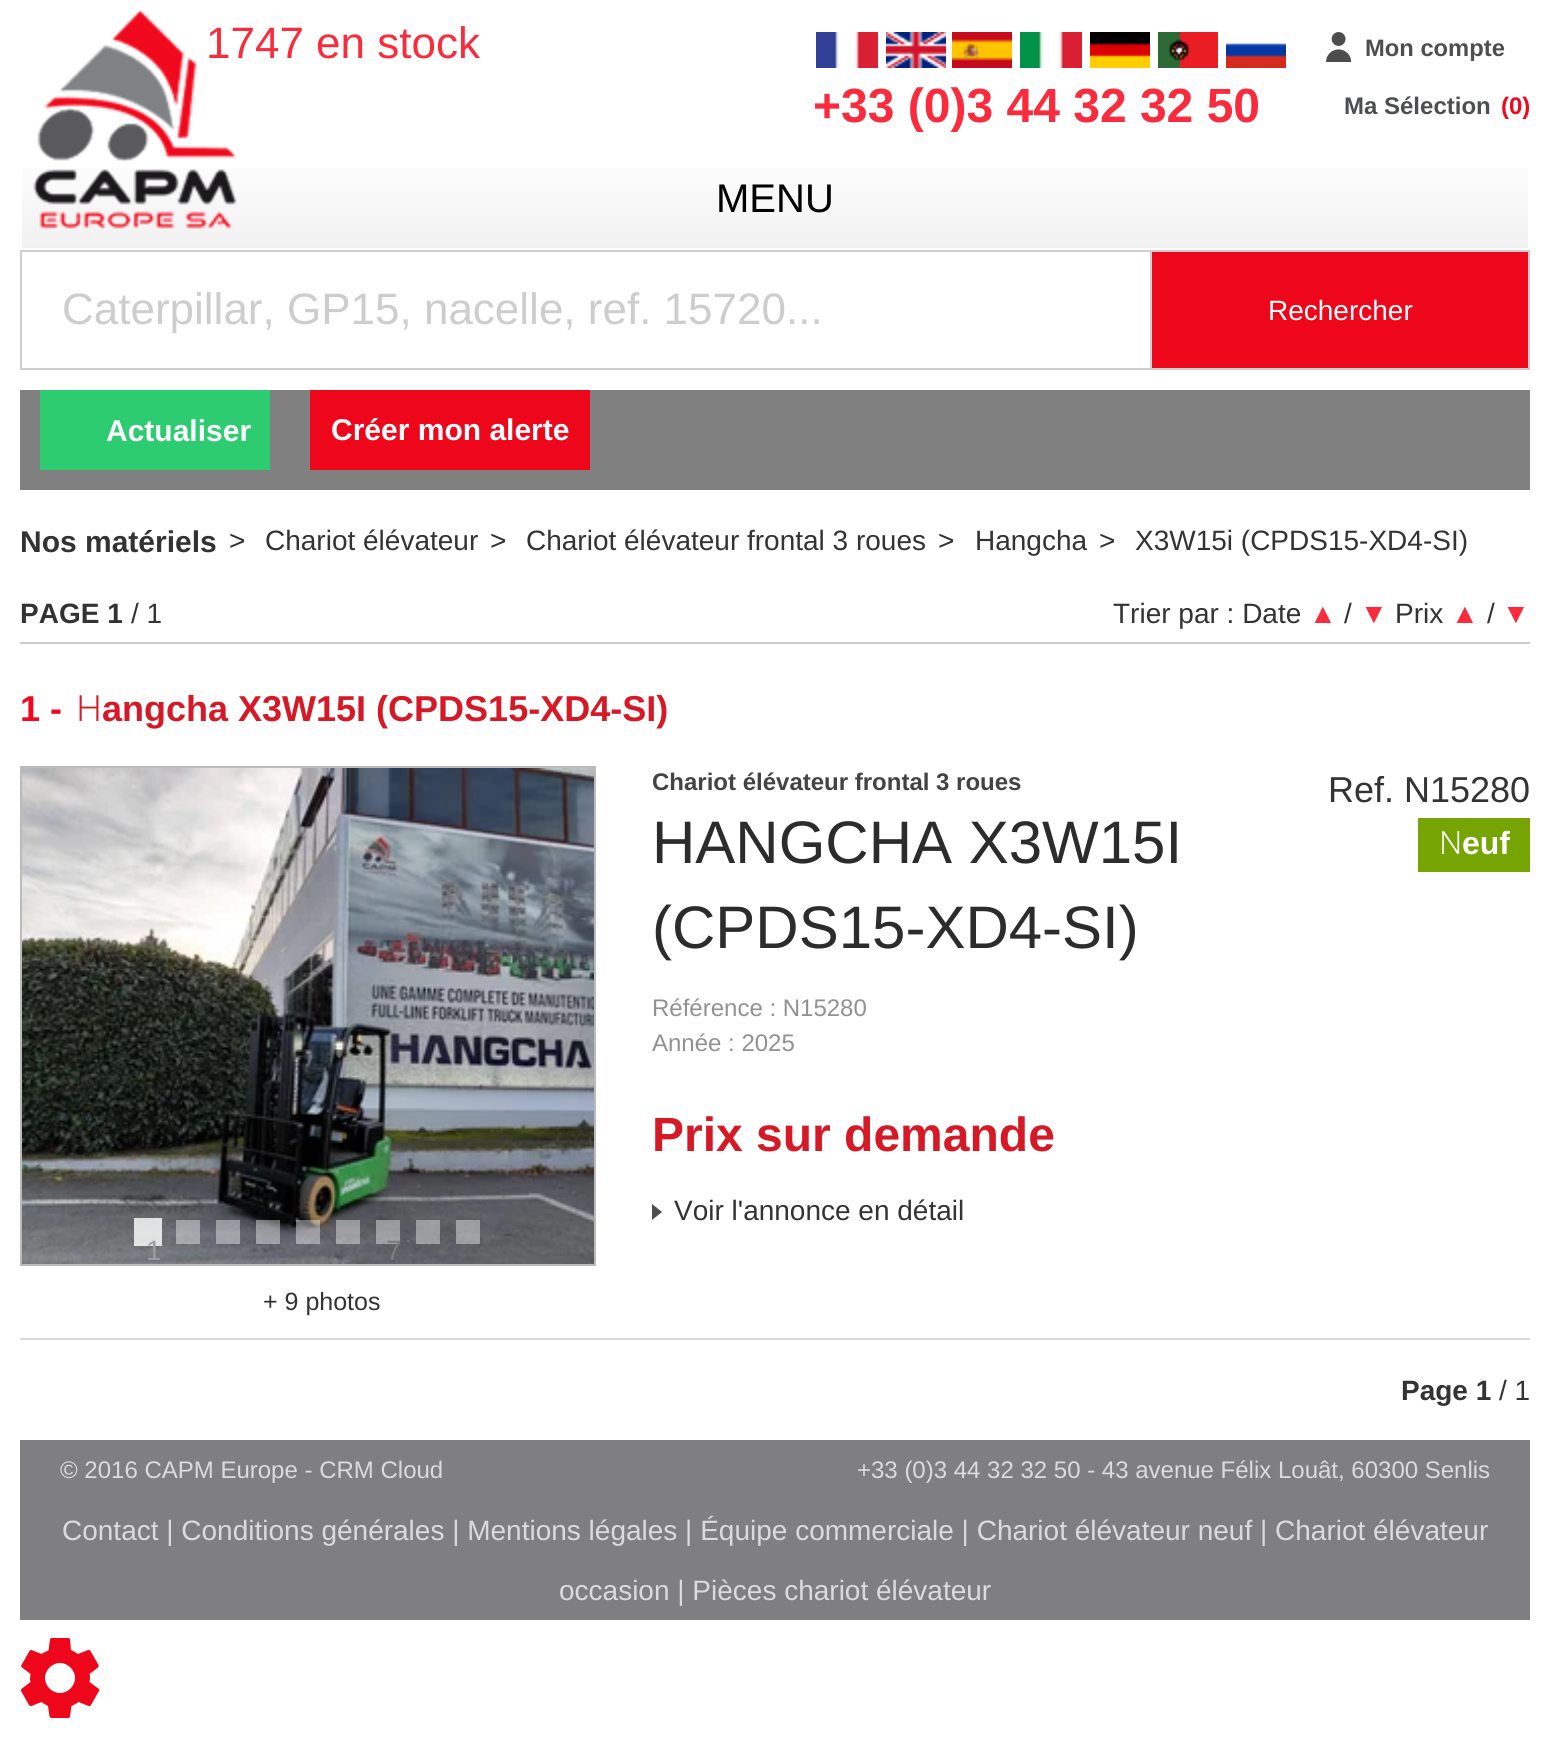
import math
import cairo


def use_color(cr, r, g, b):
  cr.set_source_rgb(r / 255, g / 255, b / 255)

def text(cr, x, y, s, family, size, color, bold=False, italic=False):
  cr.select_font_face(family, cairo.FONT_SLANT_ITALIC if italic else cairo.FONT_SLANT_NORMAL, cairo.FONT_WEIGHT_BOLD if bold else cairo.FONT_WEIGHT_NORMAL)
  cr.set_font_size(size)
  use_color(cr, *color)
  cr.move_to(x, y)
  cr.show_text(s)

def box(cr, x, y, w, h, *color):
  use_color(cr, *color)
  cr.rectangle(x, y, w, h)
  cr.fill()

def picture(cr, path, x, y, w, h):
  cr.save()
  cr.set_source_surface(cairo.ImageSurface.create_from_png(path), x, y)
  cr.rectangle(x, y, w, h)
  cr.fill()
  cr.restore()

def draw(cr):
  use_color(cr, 255, 255, 255)
  cr.paint()
  picture(cr, "img_02.png", 816, 32, 62, 36)
  picture(cr, "img_03.png", 886, 32, 60, 36)
  picture(cr, "img_04.png", 952, 32, 60, 36)
  picture(cr, "img_05.png", 1020, 32, 62, 36)
  picture(cr, "img_06.png", 1090, 32, 60, 36)
  picture(cr, "img_07.png", 1158, 32, 60, 36)
  picture(cr, "img_08.png", 1226, 43, 60, 25)
  picture(cr, "img_09.png", 1326, 32, 26, 30)
  gradient = cairo.LinearGradient(775, 150, 775, 248)
  gradient.add_color_stop_rgba(0, 1, 1, 1, 1)
  gradient.add_color_stop_rgba(1, 0.945, 0.945, 0.945, 1)
  cr.set_source(gradient)
  cr.rectangle(22, 168, 1506, 80)
  cr.fill()
  cr.rectangle(21, 251, 1130, 118)
  use_color(cr, 206, 206, 208)
  cr.stroke()
  box(cr, 1152, 252, 376, 116, 238, 7, 27)
  box(cr, 1152, 250, 378, 2, 206, 206, 208)
  box(cr, 1528, 250, 2, 120, 206, 206, 208)
  box(cr, 1152, 368, 378, 2, 206, 206, 208)
  box(cr, 20, 390, 1510, 100, 128, 128, 128)
  box(cr, 40, 390, 230, 80, 46, 204, 113)
  box(cr, 310, 390, 280, 80, 238, 7, 27)
  box(cr, 20, 642, 1510, 2, 204, 204, 204)
  box(cr, 20, 1338, 1510, 2, 218, 218, 218)
  use_color(cr, 78, 78, 78)
  cr.new_path()
  cr.move_to(652, 1220)
  cr.line_to(652, 1204)
  cr.line_to(662, 1212)
  cr.close_path()
  cr.fill()
  box(cr, 1418, 818, 112, 54, 117, 164, 3)
  cr.rectangle(21, 767, 574, 498)
  use_color(cr, 187, 187, 187)
  cr.stroke()
  picture(cr, "img_10.png", 22, 768, 572, 496)
  cr.set_source_rgba(1, 1, 1, 0.4)
  cr.rectangle(176, 1220, 24, 24)
  cr.fill()
  cr.rectangle(216, 1220, 24, 24)
  cr.fill()
  cr.rectangle(256, 1220, 24, 24)
  cr.fill()
  cr.rectangle(296, 1220, 24, 24)
  cr.fill()
  cr.rectangle(336, 1220, 24, 24)
  cr.fill()
  cr.rectangle(416, 1220, 24, 24)
  cr.fill()
  cr.rectangle(456, 1220, 24, 24)
  cr.fill()
  cr.set_source_rgba(1, 1, 1, 0.8)
  cr.rectangle(136, 1220, 24, 24)
  cr.fill()
  cr.rectangle(135, 1219, 26, 26)
  cr.stroke()
  cr.set_source_rgba(1, 1, 1, 0.4)
  cr.rectangle(376, 1220, 24, 24)
  cr.fill()
  box(cr, 20, 1440, 1510, 180, 127, 127, 130)
  picture(cr, "img_11.png", 21, 1638, 79, 80)
  text(cr, 206, 58, "1747 en stock", "Liberation Sans", 44, (249, 43, 60))
  picture(cr, "img_01.png", 33, 9, 204, 220)
  text(cr, 813, 122, "+33 (0)3 44 32 32 50", "Liberation Sans", 48, (249, 43, 60), bold=True)
  text(cr, 1365, 56, "Mon compte", "Liberation Sans", 23.75, (77, 78, 79), bold=True)
  text(cr, 1344, 114, "Ma Sélection", "Liberation Sans", 24, (77, 78, 79), bold=True)
  text(cr, 1501, 114, "(0)", "Liberation Sans", 24, (240, 9, 29), bold=True)
  text(cr, 716, 212, "MENU", "Liberation Sans", 40, (0, 0, 0))
  text(cr, 62, 324, "Caterpillar, GP15, nacelle, ref. 15720...", "Liberation Sans", 44, (205, 205, 205))
  text(cr, 1268, 320, "Rechercher", "Liberation Sans", 28, (255, 255, 255))
  text(cr, 106, 441, "Actualiser", "Liberation Sans", 30, (255, 255, 255), bold=True)
  text(cr, 331, 440, "Créer mon alerte", "Liberation Sans", 30, (255, 255, 255), bold=True)
  text(cr, 20, 552, "Nos matériels", "Liberation Sans", 30, (51, 51, 51), bold=True)
  text(cr, 229, 550, ">", "Liberation Sans", 28, (51, 51, 51))
  text(cr, 265, 550, "Chariot élévateur", "Liberation Sans", 28, (51, 51, 51))
  text(cr, 490, 550, ">", "Liberation Sans", 28, (51, 51, 51))
  text(cr, 526, 550, "Chariot élévateur frontal 3 roues", "Liberation Sans", 28, (51, 51, 51))
  text(cr, 938, 550, ">", "Liberation Sans", 28, (51, 51, 51))
  text(cr, 975, 550, "Hangcha", "Liberation Sans", 28, (51, 51, 51))
  text(cr, 1099, 550, ">", "Liberation Sans", 28, (51, 51, 51))
  text(cr, 1135, 550, "X3W15i (CPDS15-XD4-SI)", "Liberation Sans", 28, (51, 51, 51))
  text(cr, 20, 623, "PAGE 1", "Liberation Sans", 28, (51, 51, 51), bold=True)
  text(cr, 131, 623, "/ 1", "Liberation Sans", 28, (51, 51, 51))
  text(cr, 1113, 623, "Trier par : Date", "Liberation Sans", 28, (51, 51, 51))
  text(cr, 1309, 623, "▲", "Liberation Sans", 28, (249, 43, 60))
  text(cr, 1344, 623, "/", "Liberation Sans", 28, (51, 51, 51))
  text(cr, 1360, 623, "▼", "Liberation Sans", 28, (249, 43, 60))
  text(cr, 1395, 623, "Prix", "Liberation Sans", 28, (51, 51, 51))
  text(cr, 1451, 623, "▲", "Liberation Sans", 28, (249, 43, 60))
  text(cr, 1487, 623, "/", "Liberation Sans", 28, (51, 51, 51))
  text(cr, 1502, 623, "▼", "Liberation Sans", 28, (249, 43, 60))
  text(cr, 20, 721, "1 -", "Liberation Sans", 36, (240, 9, 29), bold=True)
  text(cr, 76, 721, "H", "Noto Sans Light", 36, (213, 25, 38))
  text(cr, 102, 721, "angcha X3W15I (CPDS15-XD4-SI)", "Liberation Sans", 36, (213, 25, 38), bold=True)
  text(cr, 652, 790, "Chariot élévateur frontal 3 roues", "Liberation Sans", 24, (66, 67, 66), bold=True)
  text(cr, 652, 863, "HANGCHA X3W15I", "Liberation Sans", 60, (44, 44, 44))
  text(cr, 652, 948, "(CPDS15-XD4-SI)", "Liberation Sans", 60, (44, 44, 44))
  text(cr, 652, 1016, "Référence : N15280", "Liberation Sans", 24, (146, 145, 145))
  text(cr, 652, 1051, "Année : 2025", "Liberation Sans", 24, (146, 145, 145))
  text(cr, 652, 1151, "Prix sur demande", "Liberation Sans", 48, (213, 25, 38), bold=True)
  text(cr, 674, 1220, "Voir l'annonce en détail", "Liberation Sans", 28, (51, 51, 51))
  text(cr, 1328, 802, "Ref. N15280", "Liberation Sans", 36, (51, 51, 51))
  text(cr, 1439, 854, "N", "Noto Sans Light", 32, (255, 255, 255))
  text(cr, 1462, 854, "euf", "Liberation Sans", 32, (255, 255, 255), bold=True)
  text(cr, 146, 1260, "1", "Liberation Sans", 28, (154, 156, 159))
  text(cr, 386, 1260, "7", "Liberation Sans", 28, (122, 124, 129))
  text(cr, 263, 1310, "+ 9 photos", "Liberation Sans", 25, (51, 51, 51))
  text(cr, 1401, 1400, "Page 1", "Liberation Sans", 28, (51, 51, 51), bold=True)
  text(cr, 1499, 1400, "/ 1", "Liberation Sans", 28, (51, 51, 51))
  text(cr, 60, 1478, "© 2016 CAPM Europe - CRM Cloud", "Liberation Sans", 24, (219, 219, 220))
  text(cr, 857, 1478, "+33 (0)3 44 32 32 50 - 43 avenue Félix Louât, 60300 Senlis", "Liberation Sans", 24, (219, 219, 220))
  text(cr, 62, 1540, "Contact | Conditions générales | Mentions légales | Équipe commerciale | Chariot élévateur neuf | Chariot élévateur", "Liberation Sans", 28, (219, 219, 220))
  text(cr, 559, 1600, "occasion | Pièces chariot élévateur", "Liberation Sans", 28, (219, 219, 220))


surface = cairo.ImageSurface(cairo.FORMAT_RGB24, 1550, 1738)
cr = cairo.Context(surface)
options = cairo.FontOptions()
options.set_hint_metrics(cairo.HINT_METRICS_OFF)
options.set_hint_style(cairo.HINT_STYLE_NONE)
cr.set_font_options(options)
cr.set_miter_limit(4)
draw(cr)
surface.write_to_png("out.png")
